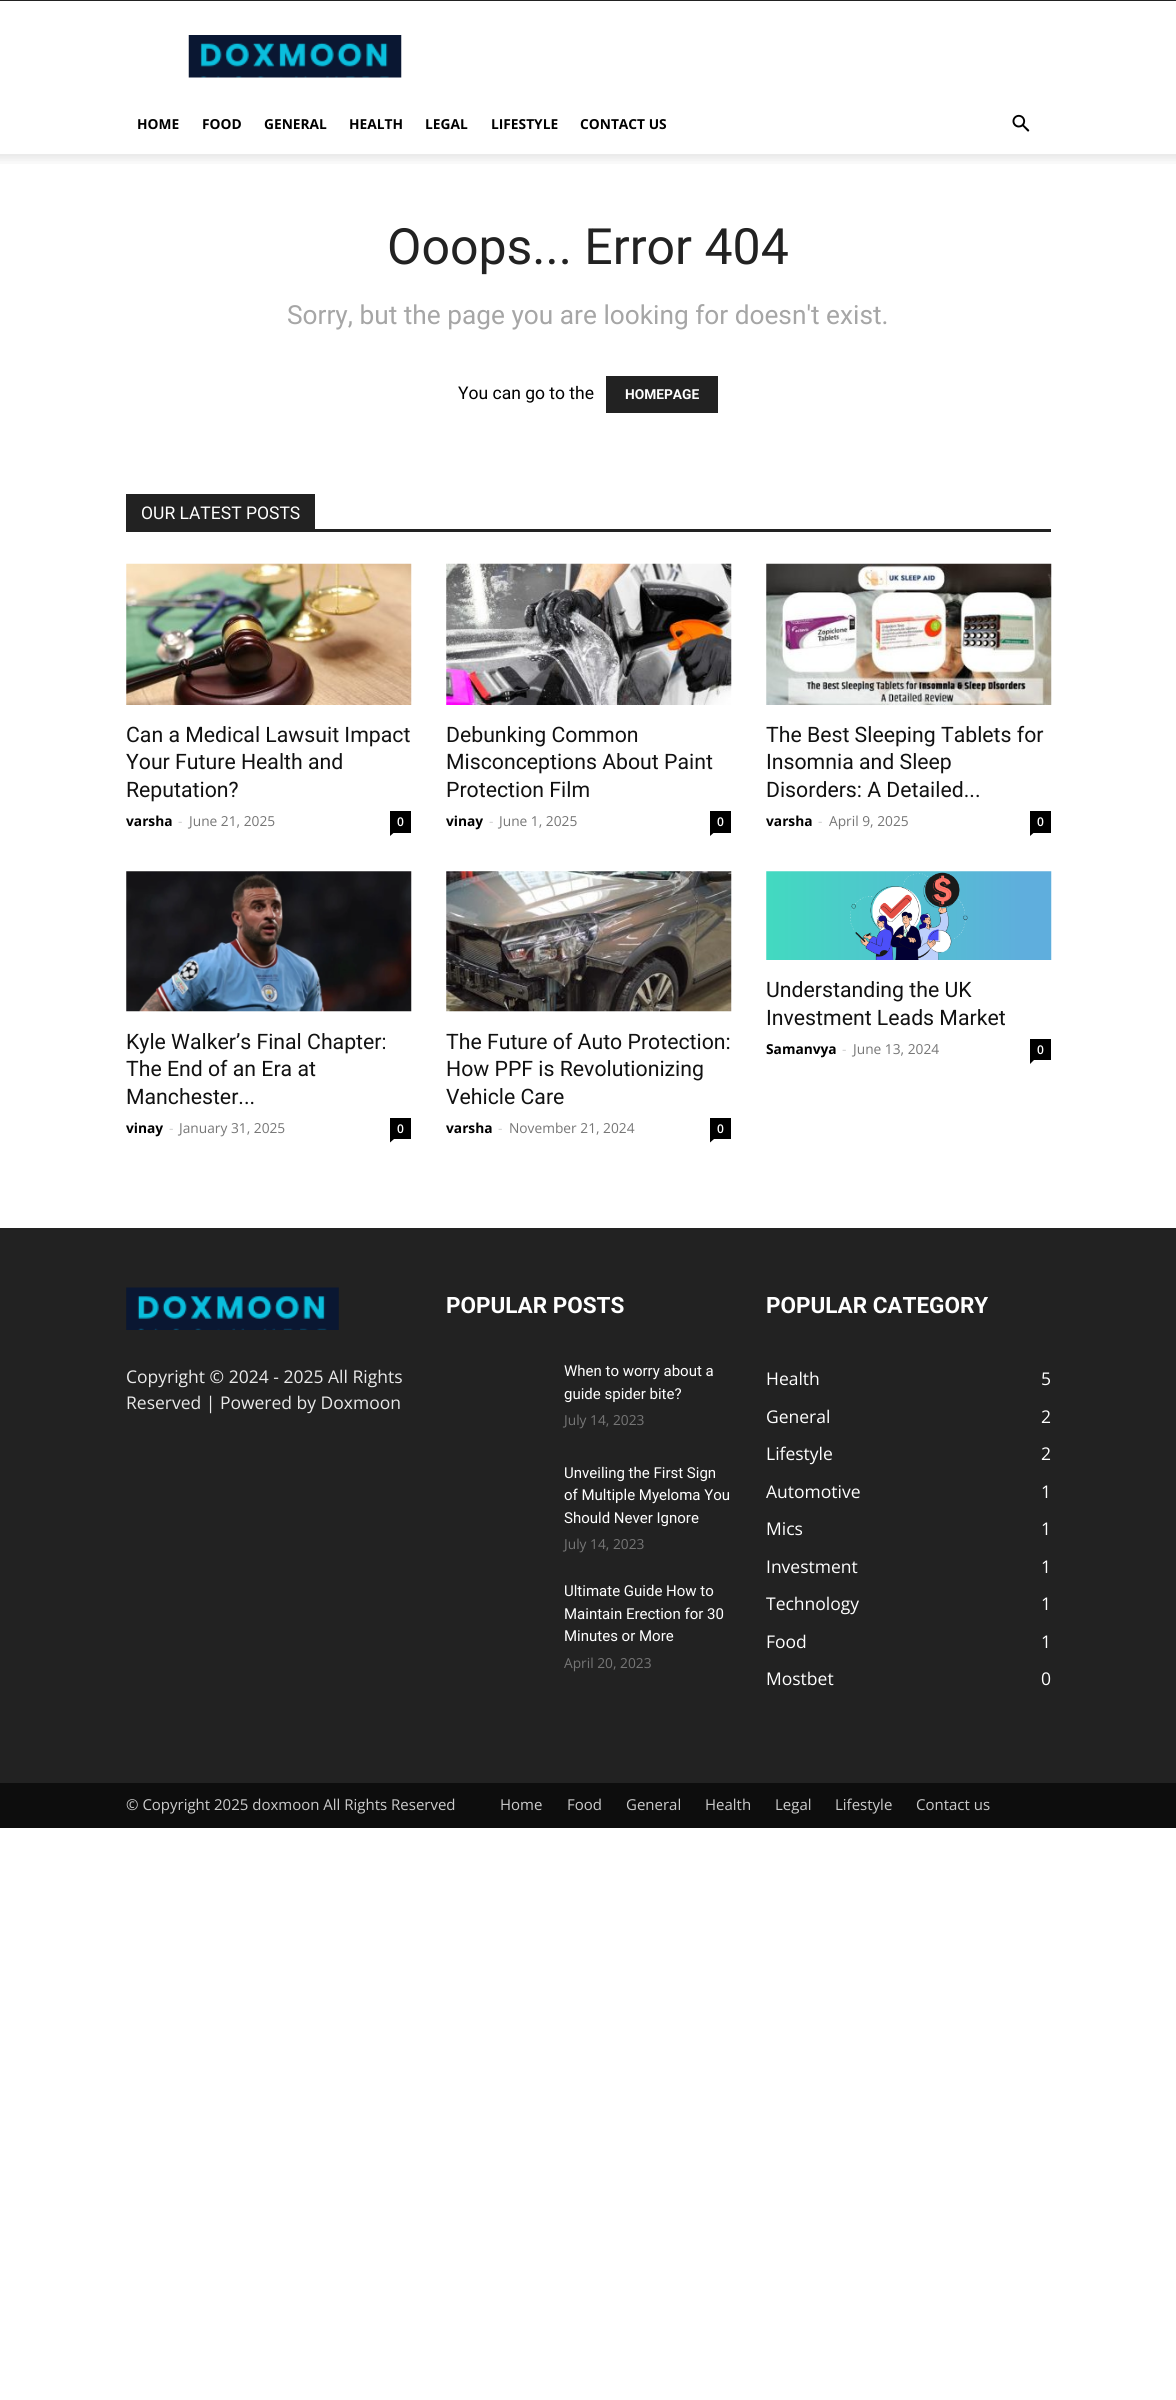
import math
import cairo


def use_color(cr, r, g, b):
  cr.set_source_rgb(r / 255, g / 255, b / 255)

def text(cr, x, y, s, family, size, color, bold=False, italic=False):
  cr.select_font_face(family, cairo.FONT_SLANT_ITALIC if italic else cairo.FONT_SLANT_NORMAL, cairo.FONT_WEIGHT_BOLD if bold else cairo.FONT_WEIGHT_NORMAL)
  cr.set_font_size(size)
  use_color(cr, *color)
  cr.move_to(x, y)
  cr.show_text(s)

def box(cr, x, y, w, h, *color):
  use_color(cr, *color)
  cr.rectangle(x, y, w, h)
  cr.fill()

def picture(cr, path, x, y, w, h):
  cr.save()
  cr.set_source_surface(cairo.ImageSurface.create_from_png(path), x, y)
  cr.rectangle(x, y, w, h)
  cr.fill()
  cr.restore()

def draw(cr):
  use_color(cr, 255, 255, 255)
  cr.paint()
  box(cr, 0, 0, 1176, 1, 34, 34, 34)
  picture(cr, "img_01.png", 188, 35, 214, 43)
  picture(cr, "img_02.png", 1012, 114, 18, 18)
  picture(cr, "img_03.png", 0, 154, 1176, 10)
  box(cr, 606, 376, 112, 37, 34, 34, 34)
  box(cr, 126, 529, 925, 3, 34, 34, 34)
  box(cr, 126, 494, 189, 35, 34, 34, 34)
  picture(cr, "img_04.png", 126, 563, 286, 142)
  box(cr, 390, 811, 21, 22, 0, 0, 0)
  cr.new_path()
  cr.move_to(390, 832.5)
  cr.line_to(394, 832.5)
  cr.line_to(390, 836)
  cr.close_path()
  cr.fill()
  picture(cr, "img_05.png", 446, 563, 286, 142)
  box(cr, 710, 811, 21, 22, 0, 0, 0)
  cr.new_path()
  cr.move_to(710, 832.5)
  cr.line_to(714, 832.5)
  cr.line_to(710, 836)
  cr.close_path()
  cr.fill()
  picture(cr, "img_06.png", 766, 563, 286, 142)
  box(cr, 1030, 811, 21, 22, 0, 0, 0)
  cr.new_path()
  cr.move_to(1030, 832.5)
  cr.line_to(1034, 832.5)
  cr.line_to(1030, 836)
  cr.close_path()
  cr.fill()
  picture(cr, "img_07.png", 766, 871, 286, 89)
  box(cr, 1030, 1039, 21, 21, 0, 0, 0)
  cr.new_path()
  cr.move_to(1030, 1060)
  cr.line_to(1034, 1060)
  cr.line_to(1030, 1064)
  cr.close_path()
  cr.fill()
  picture(cr, "img_08.png", 126, 871, 286, 141)
  box(cr, 390, 1118, 21, 21, 0, 0, 0)
  cr.new_path()
  cr.move_to(390, 1139)
  cr.line_to(394, 1139)
  cr.line_to(390, 1142.5)
  cr.close_path()
  cr.fill()
  picture(cr, "img_09.png", 446, 871, 286, 141)
  box(cr, 710, 1118, 21, 21, 0, 0, 0)
  cr.new_path()
  cr.move_to(710, 1139)
  cr.line_to(714, 1139)
  cr.line_to(710, 1142.5)
  cr.close_path()
  cr.fill()
  box(cr, 0, 1228, 1176, 555, 34, 34, 34)
  picture(cr, "img_10.png", 126, 1287, 213, 43)
  box(cr, 0, 1783, 1176, 45, 13, 13, 13)
  text(cr, 137, 129, "HOME", "Open Sans", 13.75, (0, 0, 0), bold=True)
  text(cr, 202, 129, "FOOD", "Open Sans", 13.75, (0, 0, 0), bold=True)
  text(cr, 264, 129, "GENERAL", "Open Sans", 13.75, (0, 0, 0), bold=True)
  text(cr, 349, 129, "HEALTH", "Open Sans", 13.75, (0, 0, 0), bold=True)
  text(cr, 425, 129, "LEGAL", "Open Sans", 13.75, (0, 0, 0), bold=True)
  text(cr, 491, 129, "LIFESTYLE", "Open Sans", 13.75, (0, 0, 0), bold=True)
  text(cr, 580, 129, "CONTACT US", "Open Sans", 13.75, (0, 0, 0), bold=True)
  text(cr, 387, 264, "Ooops... Error 404", "Roboto", 50, (34, 34, 34))
  text(cr, 287, 324, "Sorry, but the page you are looking for doesn't exist.", "Roboto", 26.25, (166, 166, 166))
  text(cr, 458, 399, "You can go to the", "Roboto", 17.5, (0, 0, 0))
  text(cr, 625, 399, "HOMEPAGE", "Roboto", 13.75, (255, 255, 255), bold=True)
  text(cr, 141, 519, "OUR LATEST POSTS", "Roboto", 17.5, (255, 255, 255))
  text(cr, 126, 742, "Can a Medical Lawsuit Impact", "Roboto", 21.25, (17, 17, 17))
  text(cr, 126, 769, "Your Future Health and", "Roboto", 21.25, (17, 17, 17))
  text(cr, 126, 797, "Reputation?", "Roboto", 21.25, (17, 17, 17))
  text(cr, 126, 826, "varsha", "Open Sans", 13.75, (0, 0, 0), bold=True)
  text(cr, 178, 826, "-", "Open Sans", 13.75, (204, 204, 204))
  text(cr, 189, 826, "June 21, 2025", "Open Sans", 13.75, (118, 118, 118))
  text(cr, 397, 826, "0", "Open Sans SemiBold", 12, (255, 255, 255))
  text(cr, 446, 742, "Debunking Common", "Roboto", 21.25, (17, 17, 17))
  text(cr, 446, 769, "Misconceptions About Paint", "Roboto", 21.25, (17, 17, 17))
  text(cr, 446, 797, "Protection Film", "Roboto", 21.25, (17, 17, 17))
  text(cr, 446, 826, "vinay", "Open Sans", 13.75, (0, 0, 0), bold=True)
  text(cr, 489, 826, "-", "Open Sans", 13.75, (204, 204, 204))
  text(cr, 499, 826, "June 1, 2025", "Open Sans", 13.75, (118, 118, 118))
  text(cr, 717, 826, "0", "Open Sans SemiBold", 12, (255, 255, 255))
  text(cr, 766, 742, "The Best Sleeping Tablets for", "Roboto", 21.25, (17, 17, 17))
  text(cr, 766, 769, "Insomnia and Sleep", "Roboto", 21.25, (17, 17, 17))
  text(cr, 766, 797, "Disorders: A Detailed...", "Roboto", 21.25, (17, 17, 17))
  text(cr, 766, 826, "varsha", "Open Sans", 13.75, (0, 0, 0), bold=True)
  text(cr, 818, 826, "-", "Open Sans", 13.75, (204, 204, 204))
  text(cr, 829, 826, "April 9, 2025", "Open Sans", 13.75, (118, 118, 118))
  text(cr, 1037, 826, "0", "Open Sans SemiBold", 12, (255, 255, 255))
  text(cr, 766, 997, "Understanding the UK", "Roboto", 21.25, (17, 17, 17))
  text(cr, 766, 1025, "Investment Leads Market", "Roboto", 21.25, (17, 17, 17))
  text(cr, 766, 1054, "Samanvya", "Open Sans", 13.75, (0, 0, 0), bold=True)
  text(cr, 842, 1054, "-", "Open Sans", 13.75, (204, 204, 204))
  text(cr, 853, 1054, "June 13, 2024", "Open Sans", 13.75, (118, 118, 118))
  text(cr, 1037, 1054, "0", "Open Sans SemiBold", 12, (255, 255, 255))
  text(cr, 126, 1049, "Kyle Walker’s Final Chapter:", "Roboto", 21.25, (17, 17, 17))
  text(cr, 126, 1076, "The End of an Era at", "Roboto", 21.25, (17, 17, 17))
  text(cr, 126, 1104, "Manchester...", "Roboto", 21.25, (17, 17, 17))
  text(cr, 126, 1133, "vinay", "Open Sans", 13.75, (0, 0, 0), bold=True)
  text(cr, 169, 1133, "-", "Open Sans", 13.75, (204, 204, 204))
  text(cr, 179, 1133, "January 31, 2025", "Open Sans", 13.75, (118, 118, 118))
  text(cr, 397, 1133, "0", "Open Sans SemiBold", 12, (255, 255, 255))
  text(cr, 446, 1049, "The Future of Auto Protection:", "Roboto", 21.25, (17, 17, 17))
  text(cr, 446, 1076, "How PPF is Revolutionizing", "Roboto", 21.25, (17, 17, 17))
  text(cr, 446, 1104, "Vehicle Care", "Roboto", 21.25, (17, 17, 17))
  text(cr, 446, 1133, "varsha", "Open Sans", 13.75, (0, 0, 0), bold=True)
  text(cr, 498, 1133, "-", "Open Sans", 13.75, (204, 204, 204))
  text(cr, 509, 1133, "November 21, 2024", "Open Sans", 13.75, (118, 118, 118))
  text(cr, 717, 1133, "0", "Open Sans SemiBold", 12, (255, 255, 255))
  text(cr, 126, 1383, "Copyright © 2024 - 2025 All Rights", "Open Sans", 17.5, (234, 234, 234))
  text(cr, 126, 1409, "Reserved | Powered by Doxmoon", "Open Sans", 17.5, (234, 234, 234))
  text(cr, 446, 1313, "POPULAR POSTS", "Roboto", 22.5, (255, 255, 255), bold=True)
  text(cr, 564, 1376, "When to worry about a", "Roboto", 15, (255, 255, 255))
  text(cr, 564, 1399, "guide spider bite?", "Roboto", 15, (255, 255, 255))
  text(cr, 564, 1425, "July 14, 2023", "Open Sans", 13.75, (118, 118, 118))
  text(cr, 564, 1478, "Unveiling the First Sign", "Roboto", 15, (255, 255, 255))
  text(cr, 564, 1500, "of Multiple Myeloma You", "Roboto", 15, (255, 255, 255))
  text(cr, 564, 1523, "Should Never Ignore", "Roboto", 15, (255, 255, 255))
  text(cr, 564, 1549, "July 14, 2023", "Open Sans", 13.75, (118, 118, 118))
  text(cr, 564, 1596, "Ultimate Guide How to", "Roboto", 15, (255, 255, 255))
  text(cr, 564, 1619, "Maintain Erection for 30", "Roboto", 15, (255, 255, 255))
  text(cr, 564, 1641, "Minutes or More", "Roboto", 15, (255, 255, 255))
  text(cr, 564, 1668, "April 20, 2023", "Open Sans", 13.75, (118, 118, 118))
  text(cr, 766, 1313, "POPULAR CATEGORY", "Roboto", 22.5, (255, 255, 255), bold=True)
  text(cr, 766, 1385, "Health", "Open Sans", 17.5, (255, 255, 255))
  text(cr, 1041, 1385, "5", "Open Sans", 17.5, (255, 255, 255))
  text(cr, 766, 1423, "General", "Open Sans", 17.5, (255, 255, 255))
  text(cr, 1041, 1423, "2", "Open Sans", 17.5, (255, 255, 255))
  text(cr, 766, 1460, "Lifestyle", "Open Sans", 17.5, (255, 255, 255))
  text(cr, 1041, 1460, "2", "Open Sans", 17.5, (255, 255, 255))
  text(cr, 766, 1498, "Automotive", "Open Sans", 17.5, (255, 255, 255))
  text(cr, 1041, 1498, "1", "Open Sans", 17.5, (255, 255, 255))
  text(cr, 766, 1535, "Mics", "Open Sans", 17.5, (255, 255, 255))
  text(cr, 1041, 1535, "1", "Open Sans", 17.5, (255, 255, 255))
  text(cr, 766, 1573, "Investment", "Open Sans", 17.5, (255, 255, 255))
  text(cr, 1041, 1573, "1", "Open Sans", 17.5, (255, 255, 255))
  text(cr, 766, 1610, "Technology", "Open Sans", 17.5, (255, 255, 255))
  text(cr, 1041, 1610, "1", "Open Sans", 17.5, (255, 255, 255))
  text(cr, 766, 1648, "Food", "Open Sans", 17.5, (255, 255, 255))
  text(cr, 1041, 1648, "1", "Open Sans", 17.5, (255, 255, 255))
  text(cr, 766, 1685, "Mostbet", "Open Sans", 17.5, (255, 255, 255))
  text(cr, 1041, 1685, "0", "Open Sans", 17.5, (255, 255, 255))
  text(cr, 126, 1810, "© Copyright 2025 doxmoon All Rights Reserved", "Open Sans", 15, (204, 204, 204))
  text(cr, 500, 1810, "Home", "Open Sans", 15, (204, 204, 204))
  text(cr, 567, 1810, "Food", "Open Sans", 15, (204, 204, 204))
  text(cr, 626, 1810, "General", "Open Sans", 15, (204, 204, 204))
  text(cr, 705, 1810, "Health", "Open Sans", 15, (204, 204, 204))
  text(cr, 775, 1810, "Legal", "Open Sans", 15, (204, 204, 204))
  text(cr, 835, 1810, "Lifestyle", "Open Sans", 15, (204, 204, 204))
  text(cr, 916, 1810, "Contact us", "Open Sans", 15, (204, 204, 204))


surface = cairo.ImageSurface(cairo.FORMAT_RGB24, 1176, 2400)
cr = cairo.Context(surface)
options = cairo.FontOptions()
options.set_hint_metrics(cairo.HINT_METRICS_OFF)
options.set_hint_style(cairo.HINT_STYLE_NONE)
cr.set_font_options(options)
cr.set_miter_limit(4)
draw(cr)
surface.write_to_png("out.png")
